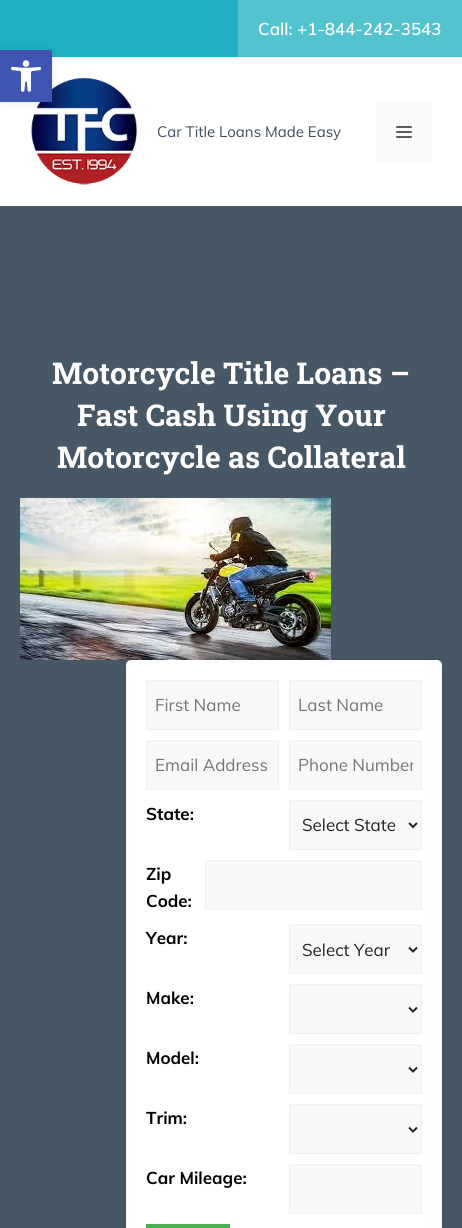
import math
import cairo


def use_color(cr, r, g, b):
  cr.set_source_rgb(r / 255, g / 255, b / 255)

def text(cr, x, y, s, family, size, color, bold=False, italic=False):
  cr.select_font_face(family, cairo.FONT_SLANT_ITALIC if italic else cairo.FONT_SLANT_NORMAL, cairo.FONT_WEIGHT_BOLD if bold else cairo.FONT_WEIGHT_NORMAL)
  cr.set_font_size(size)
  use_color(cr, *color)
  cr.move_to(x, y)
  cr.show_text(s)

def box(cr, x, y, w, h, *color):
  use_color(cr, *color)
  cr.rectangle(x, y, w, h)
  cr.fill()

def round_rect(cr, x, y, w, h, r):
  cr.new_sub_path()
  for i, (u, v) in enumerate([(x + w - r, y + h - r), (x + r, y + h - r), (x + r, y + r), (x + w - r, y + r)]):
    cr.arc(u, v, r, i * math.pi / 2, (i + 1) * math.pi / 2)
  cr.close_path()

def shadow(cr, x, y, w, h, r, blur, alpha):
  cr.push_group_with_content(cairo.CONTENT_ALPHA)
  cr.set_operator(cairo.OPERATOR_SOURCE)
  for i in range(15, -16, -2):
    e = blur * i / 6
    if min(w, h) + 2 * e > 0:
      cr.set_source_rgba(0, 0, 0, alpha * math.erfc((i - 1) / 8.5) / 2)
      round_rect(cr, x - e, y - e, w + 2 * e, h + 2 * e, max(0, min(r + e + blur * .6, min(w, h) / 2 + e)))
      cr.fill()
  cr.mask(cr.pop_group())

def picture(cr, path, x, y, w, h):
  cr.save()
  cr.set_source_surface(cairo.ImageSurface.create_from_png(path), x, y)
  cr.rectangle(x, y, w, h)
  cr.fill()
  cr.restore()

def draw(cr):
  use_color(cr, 31, 177, 193)
  cr.paint()
  box(cr, 238, 0, 224, 57, 83, 195, 207)
  box(cr, 0, 57, 462, 149, 255, 255, 255)
  picture(cr, "img_02.png", 31, 77, 106, 108)
  use_color(cr, 0, 0, 0)
  shadow(cr, 0, 50, 52, 52, 0, 5, 0.1)
  box(cr, 0, 50, 52, 52, 64, 84, 178)
  picture(cr, "img_01.png", 11, 60, 30, 32)
  box(cr, 376, 102, 56, 60, 250, 250, 250)
  picture(cr, "img_03.png", 396, 126, 16, 12)
  box(cr, 0, 206, 462, 1022, 70, 87, 102)
  picture(cr, "img_04.png", 20, 498, 311, 162)
  use_color(cr, 0, 0, 0)
  shadow(cr, 126, 660, 316, 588, 5, 5, 0.1)
  use_color(cr, 255, 255, 255)
  round_rect(cr, 126, 660, 316, 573, 5)
  cr.fill()
  use_color(cr, 247, 248, 249)
  cr.rectangle(146.5, 680.5, 132, 49)
  cr.fill_preserve()
  use_color(cr, 240, 240, 240)
  cr.set_line_width(1)
  cr.stroke()
  use_color(cr, 247, 248, 249)
  cr.rectangle(289.5, 680.5, 132, 49)
  cr.fill_preserve()
  use_color(cr, 240, 240, 240)
  cr.stroke()
  use_color(cr, 247, 248, 249)
  cr.rectangle(146.5, 740.5, 132, 49)
  cr.fill_preserve()
  use_color(cr, 240, 240, 240)
  cr.stroke()
  use_color(cr, 247, 248, 249)
  cr.rectangle(289.5, 740.5, 132, 49)
  cr.fill_preserve()
  use_color(cr, 240, 240, 240)
  cr.stroke()
  use_color(cr, 247, 248, 249)
  cr.rectangle(289.5, 800.5, 132, 49)
  cr.fill_preserve()
  use_color(cr, 240, 240, 240)
  cr.stroke()
  cr.new_path()
  cr.move_to(409, 823)
  cr.line_to(413, 827)
  cr.line_to(417, 823)
  use_color(cr, 34, 34, 34)
  cr.set_line_width(2)
  cr.stroke()
  use_color(cr, 247, 248, 249)
  cr.rectangle(205.5, 860.5, 216, 49)
  cr.fill_preserve()
  use_color(cr, 240, 240, 240)
  cr.set_line_width(1)
  cr.stroke()
  use_color(cr, 247, 248, 249)
  cr.rectangle(289.5, 924.5, 132, 49)
  cr.fill_preserve()
  use_color(cr, 240, 240, 240)
  cr.stroke()
  cr.new_path()
  cr.move_to(409, 947.5)
  cr.line_to(413, 951.5)
  cr.line_to(417, 947.5)
  use_color(cr, 34, 34, 34)
  cr.set_line_width(2)
  cr.stroke()
  use_color(cr, 247, 248, 249)
  cr.rectangle(289.5, 984.5, 132, 49)
  cr.fill_preserve()
  use_color(cr, 240, 240, 240)
  cr.set_line_width(1)
  cr.stroke()
  cr.new_path()
  cr.move_to(409, 1007.5)
  cr.line_to(413, 1011.5)
  cr.line_to(417, 1007.5)
  use_color(cr, 34, 34, 34)
  cr.set_line_width(2)
  cr.stroke()
  use_color(cr, 247, 248, 249)
  cr.rectangle(289.5, 1044.5, 132, 49)
  cr.fill_preserve()
  use_color(cr, 240, 240, 240)
  cr.set_line_width(1)
  cr.stroke()
  cr.new_path()
  cr.move_to(409, 1067.5)
  cr.line_to(413, 1071.5)
  cr.line_to(417, 1067.5)
  use_color(cr, 34, 34, 34)
  cr.set_line_width(2)
  cr.stroke()
  use_color(cr, 247, 248, 249)
  cr.rectangle(289.5, 1104.5, 132, 49)
  cr.fill_preserve()
  use_color(cr, 240, 240, 240)
  cr.set_line_width(1)
  cr.stroke()
  cr.new_path()
  cr.move_to(409, 1127.5)
  cr.line_to(413, 1131.5)
  cr.line_to(417, 1127.5)
  use_color(cr, 34, 34, 34)
  cr.set_line_width(2)
  cr.stroke()
  use_color(cr, 247, 248, 249)
  cr.rectangle(289.5, 1164.5, 132, 49)
  cr.fill_preserve()
  use_color(cr, 240, 240, 240)
  cr.set_line_width(1)
  cr.stroke()
  box(cr, 146, 1224, 84, 4, 76, 175, 80)
  text(cr, 258, 35, "Call: +1-844-242-3543", "Muli SemiBold", 17, (255, 255, 255))
  text(cr, 157, 137, "Car Title Loans Made Easy", "Muli", 15, (62, 79, 96))
  text(cr, 52, 384, "Motorcycle Title Loans –", "Roboto Slab", 30, (255, 255, 255), bold=True)
  text(cr, 77, 426, "Fast Cash Using Your", "Roboto Slab", 30, (255, 255, 255), bold=True)
  text(cr, 57, 468, "Motorcycle as Collateral", "Roboto Slab", 30, (255, 255, 255), bold=True)
  text(cr, 155, 711, "First Name", "Muli", 17, (117, 117, 117))
  text(cr, 298, 711, "Last Name", "Muli", 17, (117, 117, 117))
  text(cr, 155, 771, "Email Address", "Muli", 17, (117, 117, 117))
  cr.save()
  cr.rectangle(298, 754, 115, 21)
  cr.clip()
  text(cr, 298, 771, "Phone Number", "Muli", 17, (117, 117, 117))
  cr.restore()
  text(cr, 146, 820, "State:", "Muli", 17, (0, 0, 0), bold=True)
  text(cr, 302, 831, "Select State", "Muli", 17, (34, 34, 34))
  text(cr, 146, 880, "Zip", "Muli", 17, (0, 0, 0), bold=True)
  text(cr, 146, 907, "Code:", "Muli", 17, (0, 0, 0), bold=True)
  text(cr, 146, 944, "Year:", "Muli", 17, (0, 0, 0), bold=True)
  text(cr, 302, 956, "Select Year", "Muli", 17, (34, 34, 34))
  text(cr, 146, 1004, "Make:", "Muli", 17, (0, 0, 0), bold=True)
  text(cr, 146, 1064, "Model:", "Muli", 17, (0, 0, 0), bold=True)
  text(cr, 146, 1124, "Trim:", "Muli", 17, (0, 0, 0), bold=True)
  text(cr, 146, 1184, "Car Mileage:", "Muli", 17, (0, 0, 0), bold=True)


surface = cairo.ImageSurface(cairo.FORMAT_RGB24, 462, 1228)
cr = cairo.Context(surface)
options = cairo.FontOptions()
options.set_hint_metrics(cairo.HINT_METRICS_OFF)
options.set_hint_style(cairo.HINT_STYLE_NONE)
cr.set_font_options(options)
cr.set_miter_limit(4)
draw(cr)
surface.write_to_png("out.png")
